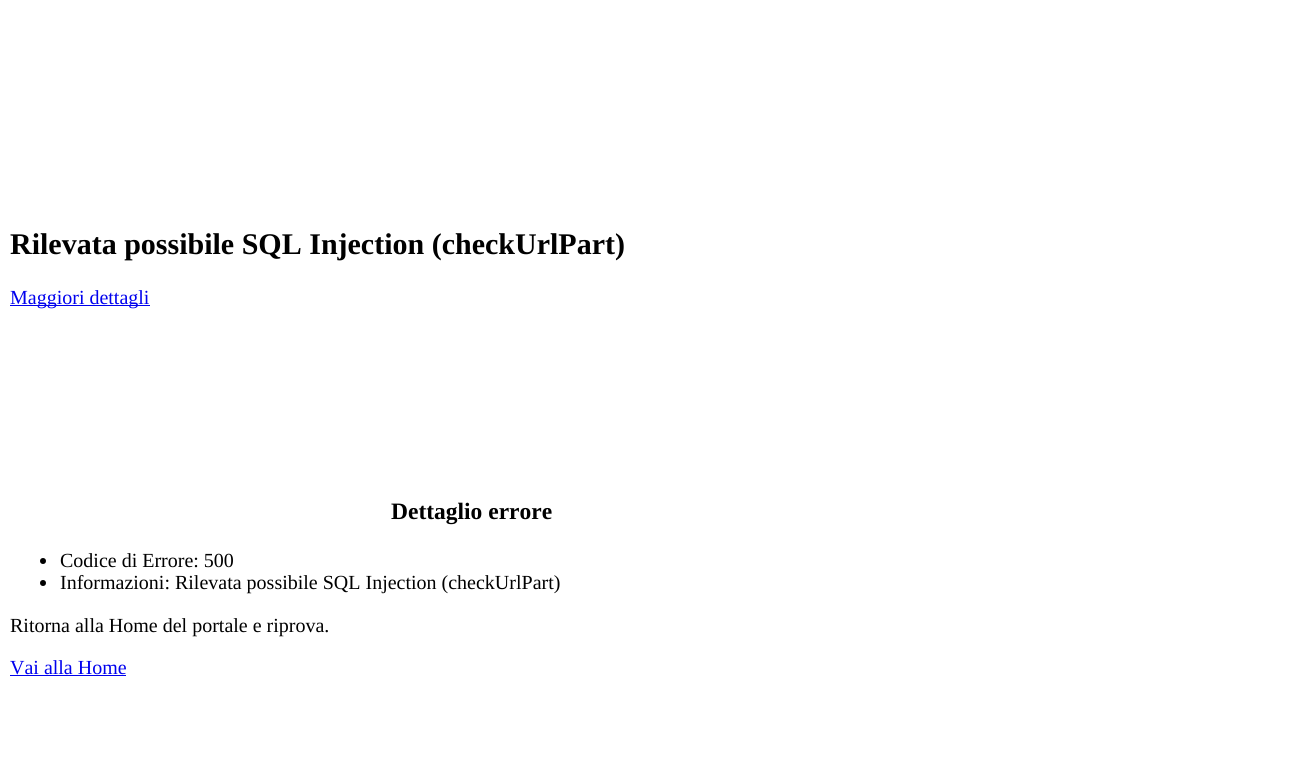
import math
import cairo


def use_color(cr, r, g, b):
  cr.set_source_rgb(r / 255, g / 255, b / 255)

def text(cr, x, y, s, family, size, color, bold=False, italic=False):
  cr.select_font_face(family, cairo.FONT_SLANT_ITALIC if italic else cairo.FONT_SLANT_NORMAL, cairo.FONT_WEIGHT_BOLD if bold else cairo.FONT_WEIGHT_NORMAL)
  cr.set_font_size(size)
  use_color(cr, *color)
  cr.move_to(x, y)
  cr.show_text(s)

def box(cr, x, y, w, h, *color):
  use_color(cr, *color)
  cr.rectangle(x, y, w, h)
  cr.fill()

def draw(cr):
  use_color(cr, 255, 255, 255)
  cr.paint()
  box(cr, 10, 305, 140, 1, 0, 0, 238)
  use_color(cr, 0, 0, 0)
  cr.arc(43, 561, 3, 0, 2 * math.pi)
  cr.fill()
  cr.arc(43, 583, 3, 0, 2 * math.pi)
  cr.fill()
  box(cr, 10, 675, 116, 1, 0, 0, 238)
  text(cr, 10, 254, "Rilevata possibile SQL Injection (checkUrlPart)", "Liberation Serif", 30, (0, 0, 0), bold=True)
  text(cr, 10, 304, "Maggiori dettagli", "Liberation Serif", 20, (0, 0, 238))
  text(cr, 391, 519, "Dettaglio errore", "Liberation Serif", 23.5, (0, 0, 0), bold=True)
  text(cr, 60, 567, "Codice di Errore: 500", "Liberation Serif", 20, (0, 0, 0))
  text(cr, 60, 589, "Informazioni: Rilevata possibile SQL Injection (checkUrlPart)", "Liberation Serif", 20, (0, 0, 0))
  text(cr, 10, 632, "Ritorna alla Home del portale e riprova.", "Liberation Serif", 20, (0, 0, 0))
  text(cr, 10, 674, "Vai alla Home", "Liberation Serif", 20, (0, 0, 238))


surface = cairo.ImageSurface(cairo.FORMAT_RGB24, 1306, 769)
cr = cairo.Context(surface)
options = cairo.FontOptions()
options.set_hint_metrics(cairo.HINT_METRICS_OFF)
options.set_hint_style(cairo.HINT_STYLE_NONE)
cr.set_font_options(options)
cr.set_miter_limit(4)
draw(cr)
surface.write_to_png("out.png")
